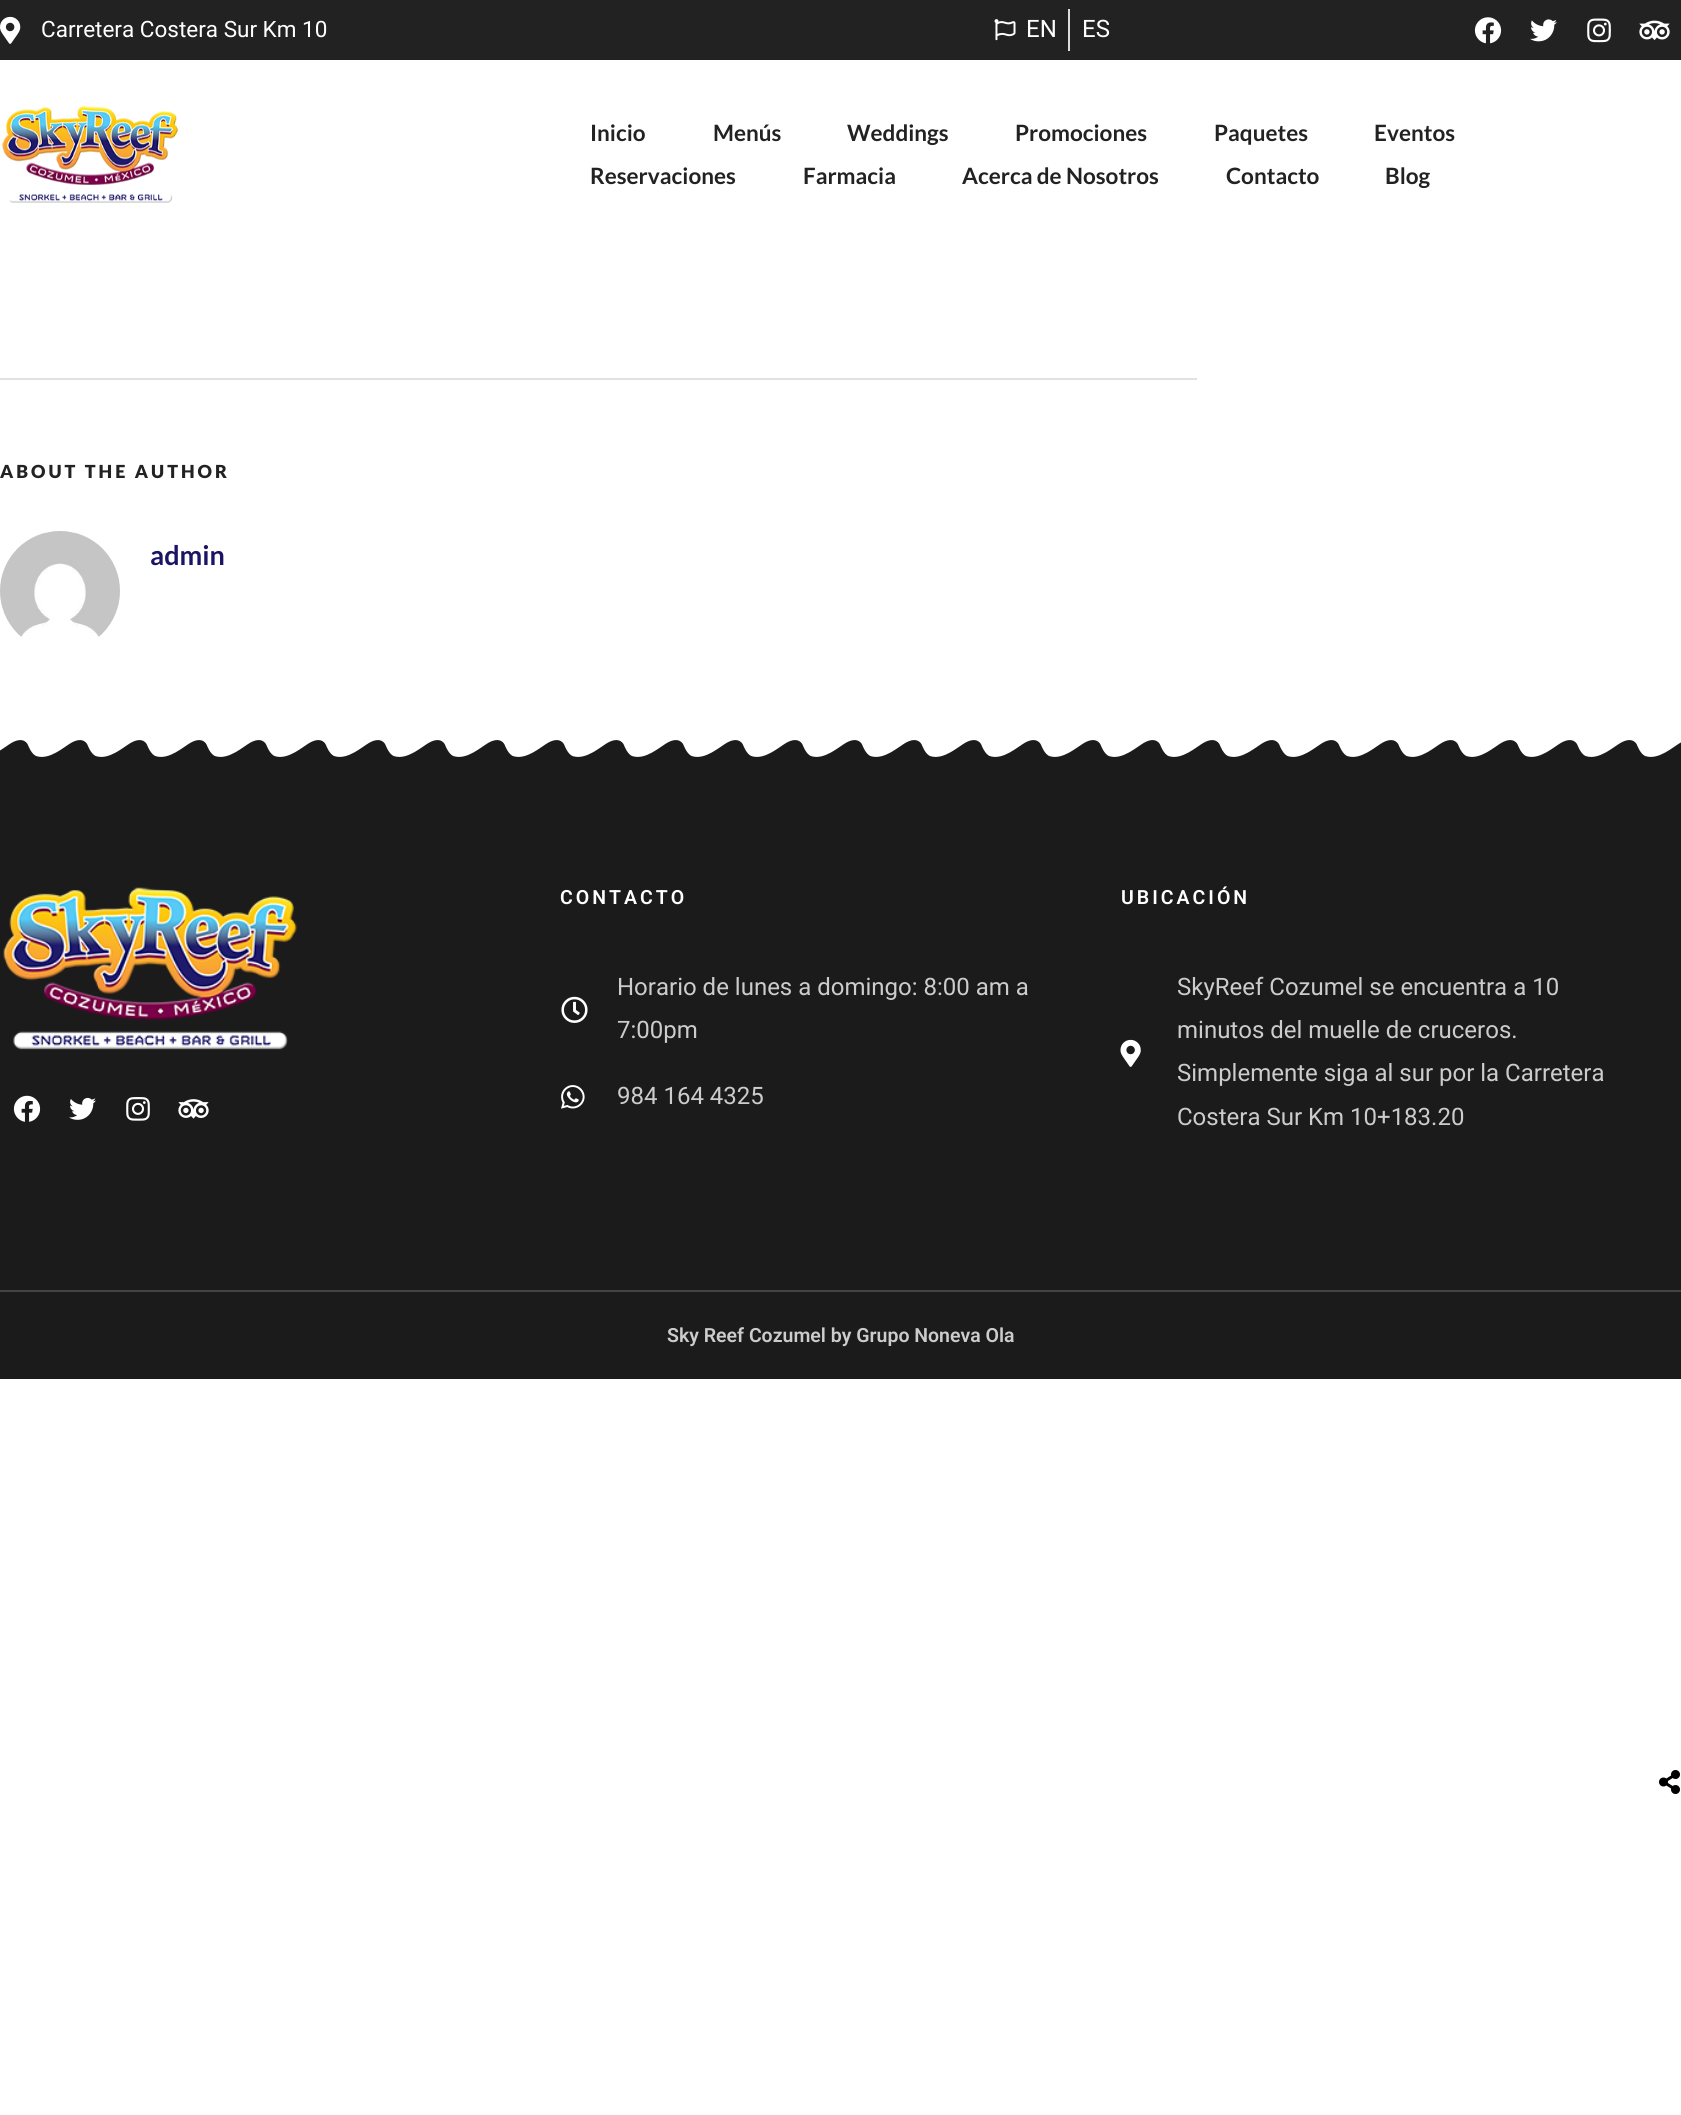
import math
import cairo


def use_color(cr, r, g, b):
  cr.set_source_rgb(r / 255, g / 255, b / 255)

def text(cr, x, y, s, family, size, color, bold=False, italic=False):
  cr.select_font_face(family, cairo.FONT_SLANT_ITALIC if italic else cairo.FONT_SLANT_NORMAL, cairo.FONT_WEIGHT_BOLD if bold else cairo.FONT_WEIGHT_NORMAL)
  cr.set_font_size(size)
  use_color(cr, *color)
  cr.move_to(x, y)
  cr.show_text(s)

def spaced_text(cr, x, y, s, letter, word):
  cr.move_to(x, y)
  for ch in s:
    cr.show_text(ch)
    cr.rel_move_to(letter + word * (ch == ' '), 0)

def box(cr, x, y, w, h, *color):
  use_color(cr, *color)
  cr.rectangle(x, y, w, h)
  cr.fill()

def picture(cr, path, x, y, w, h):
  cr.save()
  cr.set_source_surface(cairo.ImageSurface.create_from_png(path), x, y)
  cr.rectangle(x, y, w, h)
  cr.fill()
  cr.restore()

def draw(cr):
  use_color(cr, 255, 255, 255)
  cr.paint()
  box(cr, 0, 0, 1681, 60, 34, 34, 34)
  picture(cr, "img_01.png", 0, 16, 21, 28)
  picture(cr, "img_02.png", 994, 19, 22, 22)
  box(cr, 1068, 9, 2, 42, 221, 221, 221)
  picture(cr, "img_03.png", 1474, 17, 28, 27)
  picture(cr, "img_04.png", 1530, 19, 27, 23)
  picture(cr, "img_05.png", 1587, 18, 24, 25)
  picture(cr, "img_06.png", 1639, 20, 31, 20)
  picture(cr, "img_07.png", 2, 105, 176, 98)
  box(cr, 0, 378, 1197, 2, 225, 225, 225)
  picture(cr, "img_08.png", 0, 531, 120, 106)
  picture(cr, "img_09.png", 1659, 1770, 21, 24)
  box(cr, 0, 740, 1681, 550, 27, 27, 27)
  picture(cr, "img_10.png", 0, 737, 1681, 20)
  picture(cr, "img_11.png", 3, 887, 294, 163)
  picture(cr, "img_12.png", 13, 1095, 28, 27)
  picture(cr, "img_13.png", 69, 1097, 27, 23)
  picture(cr, "img_14.png", 126, 1097, 24, 24)
  picture(cr, "img_15.png", 178, 1099, 31, 20)
  picture(cr, "img_16.png", 561, 996, 27, 27)
  picture(cr, "img_17.png", 561, 1085, 24, 24)
  picture(cr, "img_18.png", 1120, 1039, 21, 28)
  box(cr, 0, 1292, 1681, 87, 27, 27, 27)
  box(cr, 0, 1290, 1681, 2, 68, 68, 68)
  text(cr, 41, 37, "Carretera Costera Sur Km 10", "Roboto", 22.5, (255, 255, 255))
  text(cr, 1026, 37, "EN", "Roboto", 24, (255, 255, 255))
  text(cr, 1082, 37, "ES", "Roboto", 24, (255, 255, 255))
  text(cr, 590, 141, "Inicio", "Lato", 22.5, (34, 34, 34), bold=True)
  text(cr, 713, 141, "Menús", "Lato", 22.5, (34, 34, 34), bold=True)
  text(cr, 847, 141, "Weddings", "Lato", 22.5, (34, 34, 34), bold=True)
  text(cr, 1015, 141, "Promociones", "Lato", 22.5, (34, 34, 34), bold=True)
  text(cr, 1214, 141, "Paquetes", "Lato", 22.5, (34, 34, 34), bold=True)
  text(cr, 1374, 141, "Eventos", "Lato", 22.5, (34, 34, 34), bold=True)
  text(cr, 590, 184, "Reservaciones", "Lato", 22.5, (34, 34, 34), bold=True)
  text(cr, 803, 184, "Farmacia", "Lato", 22.5, (34, 34, 34), bold=True)
  text(cr, 962, 184, "Acerca de Nosotros", "Lato", 22.5, (34, 34, 34), bold=True)
  text(cr, 1226, 184, "Contacto", "Lato", 22.5, (34, 34, 34), bold=True)
  text(cr, 1385, 184, "Blog", "Lato", 22.5, (34, 34, 34), bold=True)
  cr.select_font_face("Lato Black")
  cr.set_font_size(18)
  spaced_text(cr, 0, 478, "ABOUT THE AUTHOR", 3, 0)
  text(cr, 150, 565, "admin", "Lato", 27, (27, 20, 100), bold=True)
  cr.select_font_face("Roboto SemiBold")
  cr.set_font_size(19.5)
  use_color(cr, 255, 255, 255)
  spaced_text(cr, 560, 904, "CONTACTO", 3, 0)
  text(cr, 617, 995, "Horario de lunes a domingo: 8:00 am a", "Roboto", 24, (204, 204, 204))
  text(cr, 617, 1038, "7:00pm", "Roboto", 24, (204, 204, 204))
  text(cr, 617, 1104, "984 164 4325", "Roboto", 24, (204, 204, 204))
  cr.select_font_face("Roboto SemiBold")
  cr.set_font_size(19.5)
  use_color(cr, 255, 255, 255)
  spaced_text(cr, 1121, 904, "UBICACIÓN", 3, 0)
  text(cr, 1177, 995, "SkyReef Cozumel se encuentra a 10", "Roboto", 24, (204, 204, 204))
  text(cr, 1177, 1038, "minutos del muelle de cruceros.", "Roboto", 24, (204, 204, 204))
  text(cr, 1177, 1081, "Simplemente siga al sur por la Carretera", "Roboto", 24, (204, 204, 204))
  text(cr, 1177, 1125, "Costera Sur Km 10+183.20", "Roboto", 24, (204, 204, 204))
  text(cr, 667, 1342, "Sky Reef Cozumel by Grupo Noneva Ola", "Roboto SemiBold", 19.5, (204, 204, 204))


surface = cairo.ImageSurface(cairo.FORMAT_RGB24, 1681, 2115)
cr = cairo.Context(surface)
options = cairo.FontOptions()
options.set_hint_metrics(cairo.HINT_METRICS_OFF)
options.set_hint_style(cairo.HINT_STYLE_NONE)
cr.set_font_options(options)
cr.set_miter_limit(4)
draw(cr)
surface.write_to_png("out.png")
